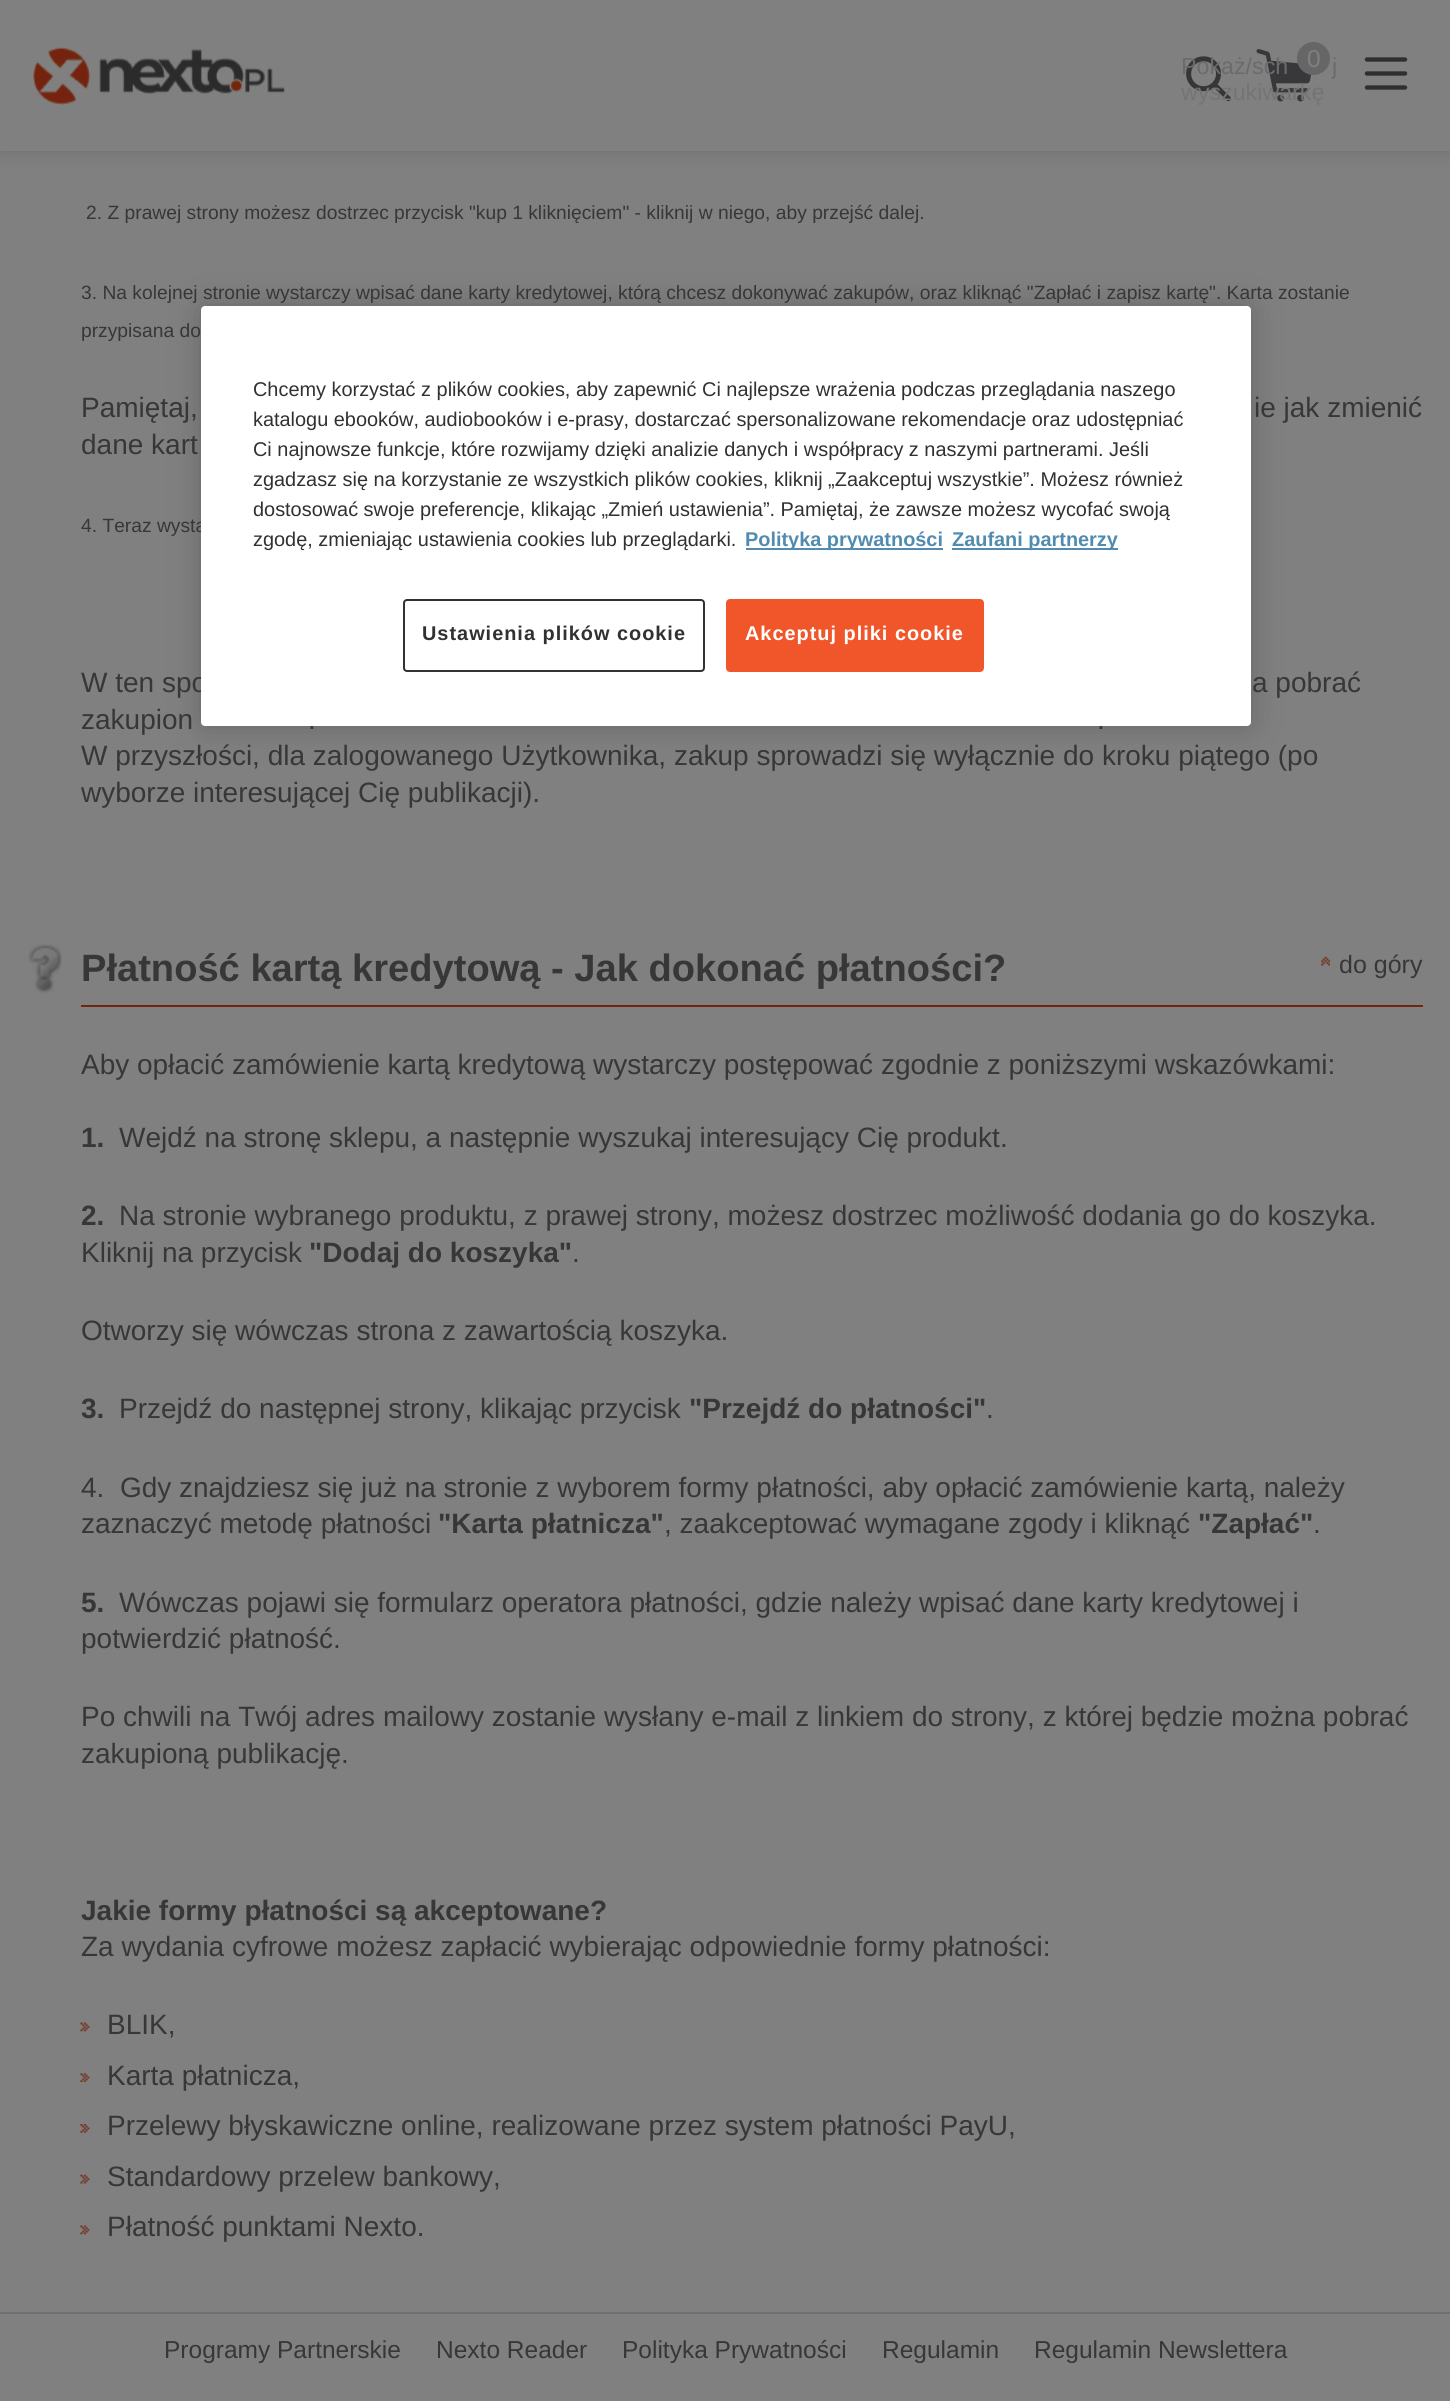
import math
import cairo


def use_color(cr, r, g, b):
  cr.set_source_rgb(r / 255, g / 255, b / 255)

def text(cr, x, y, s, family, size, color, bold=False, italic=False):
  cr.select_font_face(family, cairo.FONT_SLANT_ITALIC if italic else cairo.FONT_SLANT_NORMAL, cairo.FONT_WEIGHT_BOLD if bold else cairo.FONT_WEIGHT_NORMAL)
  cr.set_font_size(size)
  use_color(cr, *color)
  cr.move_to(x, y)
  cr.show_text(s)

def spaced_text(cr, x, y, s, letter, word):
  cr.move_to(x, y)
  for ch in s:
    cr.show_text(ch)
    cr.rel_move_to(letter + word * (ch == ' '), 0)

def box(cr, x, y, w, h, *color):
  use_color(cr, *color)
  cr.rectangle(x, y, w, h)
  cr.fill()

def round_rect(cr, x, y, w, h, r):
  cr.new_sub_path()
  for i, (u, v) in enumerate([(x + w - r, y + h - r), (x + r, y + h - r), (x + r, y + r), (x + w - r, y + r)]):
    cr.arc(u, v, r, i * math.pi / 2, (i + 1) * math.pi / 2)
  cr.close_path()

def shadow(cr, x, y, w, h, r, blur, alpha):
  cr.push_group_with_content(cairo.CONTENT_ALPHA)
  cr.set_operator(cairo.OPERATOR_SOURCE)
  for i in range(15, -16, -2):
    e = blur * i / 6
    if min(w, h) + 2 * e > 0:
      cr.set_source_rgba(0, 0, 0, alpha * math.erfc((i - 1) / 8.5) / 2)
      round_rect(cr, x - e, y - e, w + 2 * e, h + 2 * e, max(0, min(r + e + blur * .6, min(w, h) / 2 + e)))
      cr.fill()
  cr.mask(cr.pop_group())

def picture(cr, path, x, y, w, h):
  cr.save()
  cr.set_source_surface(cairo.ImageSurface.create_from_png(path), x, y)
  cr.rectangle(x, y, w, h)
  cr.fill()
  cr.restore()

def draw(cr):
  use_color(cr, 128, 128, 128)
  cr.paint()
  use_color(cr, 20, 20, 20)
  shadow(cr, 0, 0, 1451, 151, 0, 9, 0.15)
  box(cr, 0, 0, 1450, 151, 128, 128, 128)
  picture(cr, "img_01.png", 33, 47, 252, 58)
  picture(cr, "img_02.png", 1256, 49, 56, 53)
  use_color(cr, 102, 102, 102)
  cr.arc(1313.5, 58.5, 16.5, 0, 2 * math.pi)
  cr.fill()
  cr.new_path()
  cr.move_to(1367, 59.5)
  cr.line_to(1405, 59.5)
  cr.move_to(1367, 73.5)
  cr.line_to(1405, 73.5)
  cr.move_to(1367, 87.5)
  cr.line_to(1405, 87.5)
  use_color(cr, 47, 47, 47)
  cr.set_line_width(4.4)
  cr.set_line_cap(cairo.LINE_CAP_ROUND)
  cr.set_line_join(cairo.LINE_JOIN_ROUND)
  cr.stroke()
  picture(cr, "img_03.png", 1186, 56, 45, 46)
  picture(cr, "img_04.png", 28, 944, 34, 50)
  box(cr, 81, 1005, 1342, 2, 114, 37, 16)
  picture(cr, "img_05.png", 1321, 956, 9, 10)
  picture(cr, "img_06.png", 80, 2022, 10, 10)
  picture(cr, "img_07.png", 80, 2073, 10, 9)
  picture(cr, "img_08.png", 80, 2124, 10, 9)
  picture(cr, "img_09.png", 80, 2174, 10, 10)
  picture(cr, "img_10.png", 80, 2225, 10, 10)
  use_color(cr, 0, 0, 0)
  shadow(cr, 201, 306, 1050, 420, 4, 16, 0.2)
  box(cr, 0, 2312, 1450, 2, 111, 111, 111)
  text(cr, 1307, 67, "0", "Liberation Sans", 24.5, (128, 128, 128))
  text(cr, 1181, 74, "Pokaż/sch", "Liberation Sans", 23.25, (107, 107, 107))
  text(cr, 1332, 74, "j", "Liberation Sans", 23.25, (107, 107, 107))
  text(cr, 1181, 100, "wyszukiwarkę", "Liberation Sans", 23.25, (116, 116, 116))
  text(cr, 86, 219, "2. Z prawej strony możesz dostrzec przycisk \"kup 1 kliknięciem\" - kliknij w niego, aby przejść dalej.", "Liberation Sans", 19.25, (55, 55, 56))
  text(cr, 81, 299, "3. Na kolejnej stronie wystarczy wpisać dane karty kredytowej, którą chcesz dokonywać zakupów, oraz kliknąć \"Zapłać i zapisz kartę\". Karta zostanie", "Liberation Sans", 19.25, (55, 55, 56))
  text(cr, 81, 337, "przypisana do", "Liberation Sans", 19.25, (55, 55, 56))
  text(cr, 81, 417, "Pamiętaj,", "Liberation Sans", 28, (55, 55, 56))
  text(cr, 1254, 417, "ie jak zmienić", "Liberation Sans", 28, (55, 55, 56))
  text(cr, 81, 454, "dane kart", "Liberation Sans", 28, (55, 55, 56))
  text(cr, 81, 532, "4. Teraz wysta", "Liberation Sans", 19.25, (55, 55, 56))
  text(cr, 81, 692, "W ten spo", "Liberation Sans", 28, (55, 55, 56))
  text(cr, 1252, 692, "a pobrać", "Liberation Sans", 28, (55, 55, 56))
  text(cr, 81, 729, "zakupion", "Liberation Sans", 28, (55, 55, 56))
  text(cr, 308, 729, ".", "Liberation Sans", 28, (55, 55, 56))
  text(cr, 1097, 729, ".", "Liberation Sans", 28, (55, 55, 56))
  text(cr, 81, 765, "W przyszłości, dla zalogowanego Użytkownika, zakup sprowadzi się wyłącznie do kroku piątego (po", "Liberation Sans", 28, (55, 55, 56))
  text(cr, 81, 802, "wyborze interesującej Cię publikacji).", "Liberation Sans", 28, (55, 55, 56))
  text(cr, 81, 981, "Płatność kartą kredytową - Jak dokonać płatności?", "Liberation Sans", 38.1, (55, 55, 56), bold=True)
  text(cr, 1339, 973, "do góry", "Liberation Sans", 25, (55, 55, 56))
  text(cr, 81, 1074, "Aby opłacić zamówienie kartą kredytową wystarczy postępować zgodnie z poniższymi wskazówkami:", "Liberation Sans", 28, (55, 55, 56))
  text(cr, 81, 1147, "1.", "Liberation Sans", 28, (55, 55, 56), bold=True)
  text(cr, 119, 1147, "Wejdź na stronę sklepu, a następnie wyszukaj interesujący Cię produkt.", "Liberation Sans", 28, (55, 55, 56))
  text(cr, 81, 1225, "2.", "Liberation Sans", 28, (55, 55, 56), bold=True)
  text(cr, 119, 1225, "Na stronie wybranego produktu, z prawej strony, możesz dostrzec możliwość dodania go do koszyka.", "Liberation Sans", 28, (55, 55, 56))
  text(cr, 81, 1262, "Kliknij na przycisk", "Liberation Sans", 28, (55, 55, 56))
  text(cr, 309, 1262, "\"Dodaj do koszyka\"", "Liberation Sans", 28, (55, 55, 56), bold=True)
  text(cr, 572, 1262, ".", "Liberation Sans", 28, (55, 55, 56))
  text(cr, 81, 1340, "Otworzy się wówczas strona z zawartością koszyka.", "Liberation Sans", 28, (55, 55, 56))
  text(cr, 81, 1418, "3.", "Liberation Sans", 28, (55, 55, 56), bold=True)
  text(cr, 119, 1418, "Przejdź do następnej strony, klikając przycisk", "Liberation Sans", 28, (55, 55, 56))
  text(cr, 689, 1418, "\"Przejdź do płatności\"", "Liberation Sans", 28, (55, 55, 56), bold=True)
  text(cr, 986, 1418, ".", "Liberation Sans", 28, (55, 55, 56))
  text(cr, 81, 1497, "4.  Gdy znajdziesz się już na stronie z wyborem formy płatności, aby opłacić zamówienie kartą, należy", "Liberation Sans", 28, (55, 55, 56))
  text(cr, 81, 1533, "zaznaczyć metodę płatności", "Liberation Sans", 28, (55, 55, 56))
  text(cr, 438, 1533, "\"Karta płatnicza\"", "Liberation Sans", 28, (55, 55, 56), bold=True)
  text(cr, 664, 1533, ", zaakceptować wymagane zgody i kliknąć", "Liberation Sans", 28, (55, 55, 56))
  text(cr, 1198, 1533, "\"Zapłać\"", "Liberation Sans", 28, (55, 55, 56), bold=True)
  text(cr, 1313, 1533, ".", "Liberation Sans", 28, (55, 55, 56))
  text(cr, 81, 1612, "5.", "Liberation Sans", 28, (55, 55, 56), bold=True)
  text(cr, 119, 1612, "Wówczas pojawi się formularz operatora płatności, gdzie należy wpisać dane karty kredytowej i", "Liberation Sans", 28, (55, 55, 56))
  text(cr, 81, 1648, "potwierdzić płatność.", "Liberation Sans", 28, (55, 55, 56))
  text(cr, 81, 1726, "Po chwili na Twój adres mailowy zostanie wysłany e-mail z linkiem do strony, z której będzie można pobrać", "Liberation Sans", 28, (55, 55, 56))
  text(cr, 81, 1763, "zakupioną publikację.", "Liberation Sans", 28, (55, 55, 56))
  text(cr, 81, 1920, "Jakie formy płatności są akceptowane?", "Liberation Sans", 28, (55, 55, 56), bold=True)
  text(cr, 81, 1956, "Za wydania cyfrowe możesz zapłacić wybierając odpowiednie formy płatności:", "Liberation Sans", 28, (55, 55, 56))
  text(cr, 107, 2034, "BLIK,", "Liberation Sans", 28, (55, 55, 56))
  text(cr, 107, 2085, "Karta płatnicza,", "Liberation Sans", 28, (55, 55, 56))
  text(cr, 107, 2135, "Przelewy błyskawiczne online, realizowane przez system płatności PayU,", "Liberation Sans", 28, (55, 55, 56))
  text(cr, 107, 2186, "Standardowy przelew bankowy,", "Liberation Sans", 28, (55, 55, 56))
  text(cr, 107, 2236, "Płatność punktami Nexto.", "Liberation Sans", 28, (55, 55, 56))
  use_color(cr, 255, 255, 255)
  round_rect(cr, 201, 306, 1050, 420, 4)
  cr.fill()
  text(cr, 253, 396, "Chcemy korzystać z plików cookies, aby zapewnić Ci najlepsze wrażenia podczas przeglądania naszego", "Liberation Sans", 19.9, (49, 49, 49))
  text(cr, 253, 426, "katalogu ebooków, audiobooków i e-prasy, dostarczać spersonalizowane rekomendacje oraz udostępniać", "Liberation Sans", 19.9, (49, 49, 49))
  text(cr, 253, 456, "Ci najnowsze funkcje, które rozwijamy dzięki analizie danych i współpracy z naszymi partnerami. Jeśli", "Liberation Sans", 19.9, (49, 49, 49))
  text(cr, 253, 486, "zgadzasz się na korzystanie ze wszystkich plików cookies, kliknij „Zaakceptuj wszystkie”. Możesz również", "Liberation Sans", 19.9, (49, 49, 49))
  text(cr, 253, 516, "dostosować swoje preferencje, klikając „Zmień ustawienia”. Pamiętaj, że zawsze możesz wycofać swoją", "Liberation Sans", 19.9, (49, 49, 49))
  text(cr, 253, 546, "zgodę, zmieniając ustawienia cookies lub przeglądarki.", "Liberation Sans", 19.9, (49, 49, 49))
  box(cr, 746, 548, 197, 2, 81, 139, 175)
  text(cr, 745, 546, "Polityka prywatności", "Liberation Sans", 19.9, (81, 139, 175), bold=True)
  box(cr, 952, 548, 166, 2, 81, 139, 175)
  text(cr, 952, 546, "Zaufani partnerzy", "Liberation Sans", 19.9, (81, 139, 175), bold=True)
  round_rect(cr, 404, 600, 300, 71, 3)
  use_color(cr, 49, 49, 49)
  cr.set_line_width(2)
  cr.set_line_cap(cairo.LINE_CAP_BUTT)
  cr.set_line_join(cairo.LINE_JOIN_MITER)
  cr.stroke()
  spaced_text(cr, 422, 640, "Ustawienia plików cookie", 1, 0)
  use_color(cr, 241, 86, 42)
  round_rect(cr, 727, 600, 256, 71, 3)
  cr.fill_preserve()
  cr.stroke()
  use_color(cr, 255, 255, 255)
  spaced_text(cr, 745, 640, "Akceptuj pliki cookie", 1, 0)
  text(cr, 164, 2358, "Programy Partnerskie", "Liberation Sans", 24.5, (55, 55, 56))
  text(cr, 436, 2358, "Nexto Reader", "Liberation Sans", 24.5, (55, 55, 56))
  text(cr, 622, 2358, "Polityka Prywatności", "Liberation Sans", 24.5, (55, 55, 56))
  text(cr, 882, 2358, "Regulamin", "Liberation Sans", 24.5, (55, 55, 56))
  text(cr, 1034, 2358, "Regulamin Newslettera", "Liberation Sans", 24.5, (55, 55, 56))


surface = cairo.ImageSurface(cairo.FORMAT_RGB24, 1450, 2401)
cr = cairo.Context(surface)
options = cairo.FontOptions()
options.set_hint_metrics(cairo.HINT_METRICS_OFF)
options.set_hint_style(cairo.HINT_STYLE_NONE)
cr.set_font_options(options)
cr.set_miter_limit(4)
draw(cr)
surface.write_to_png("out.png")
